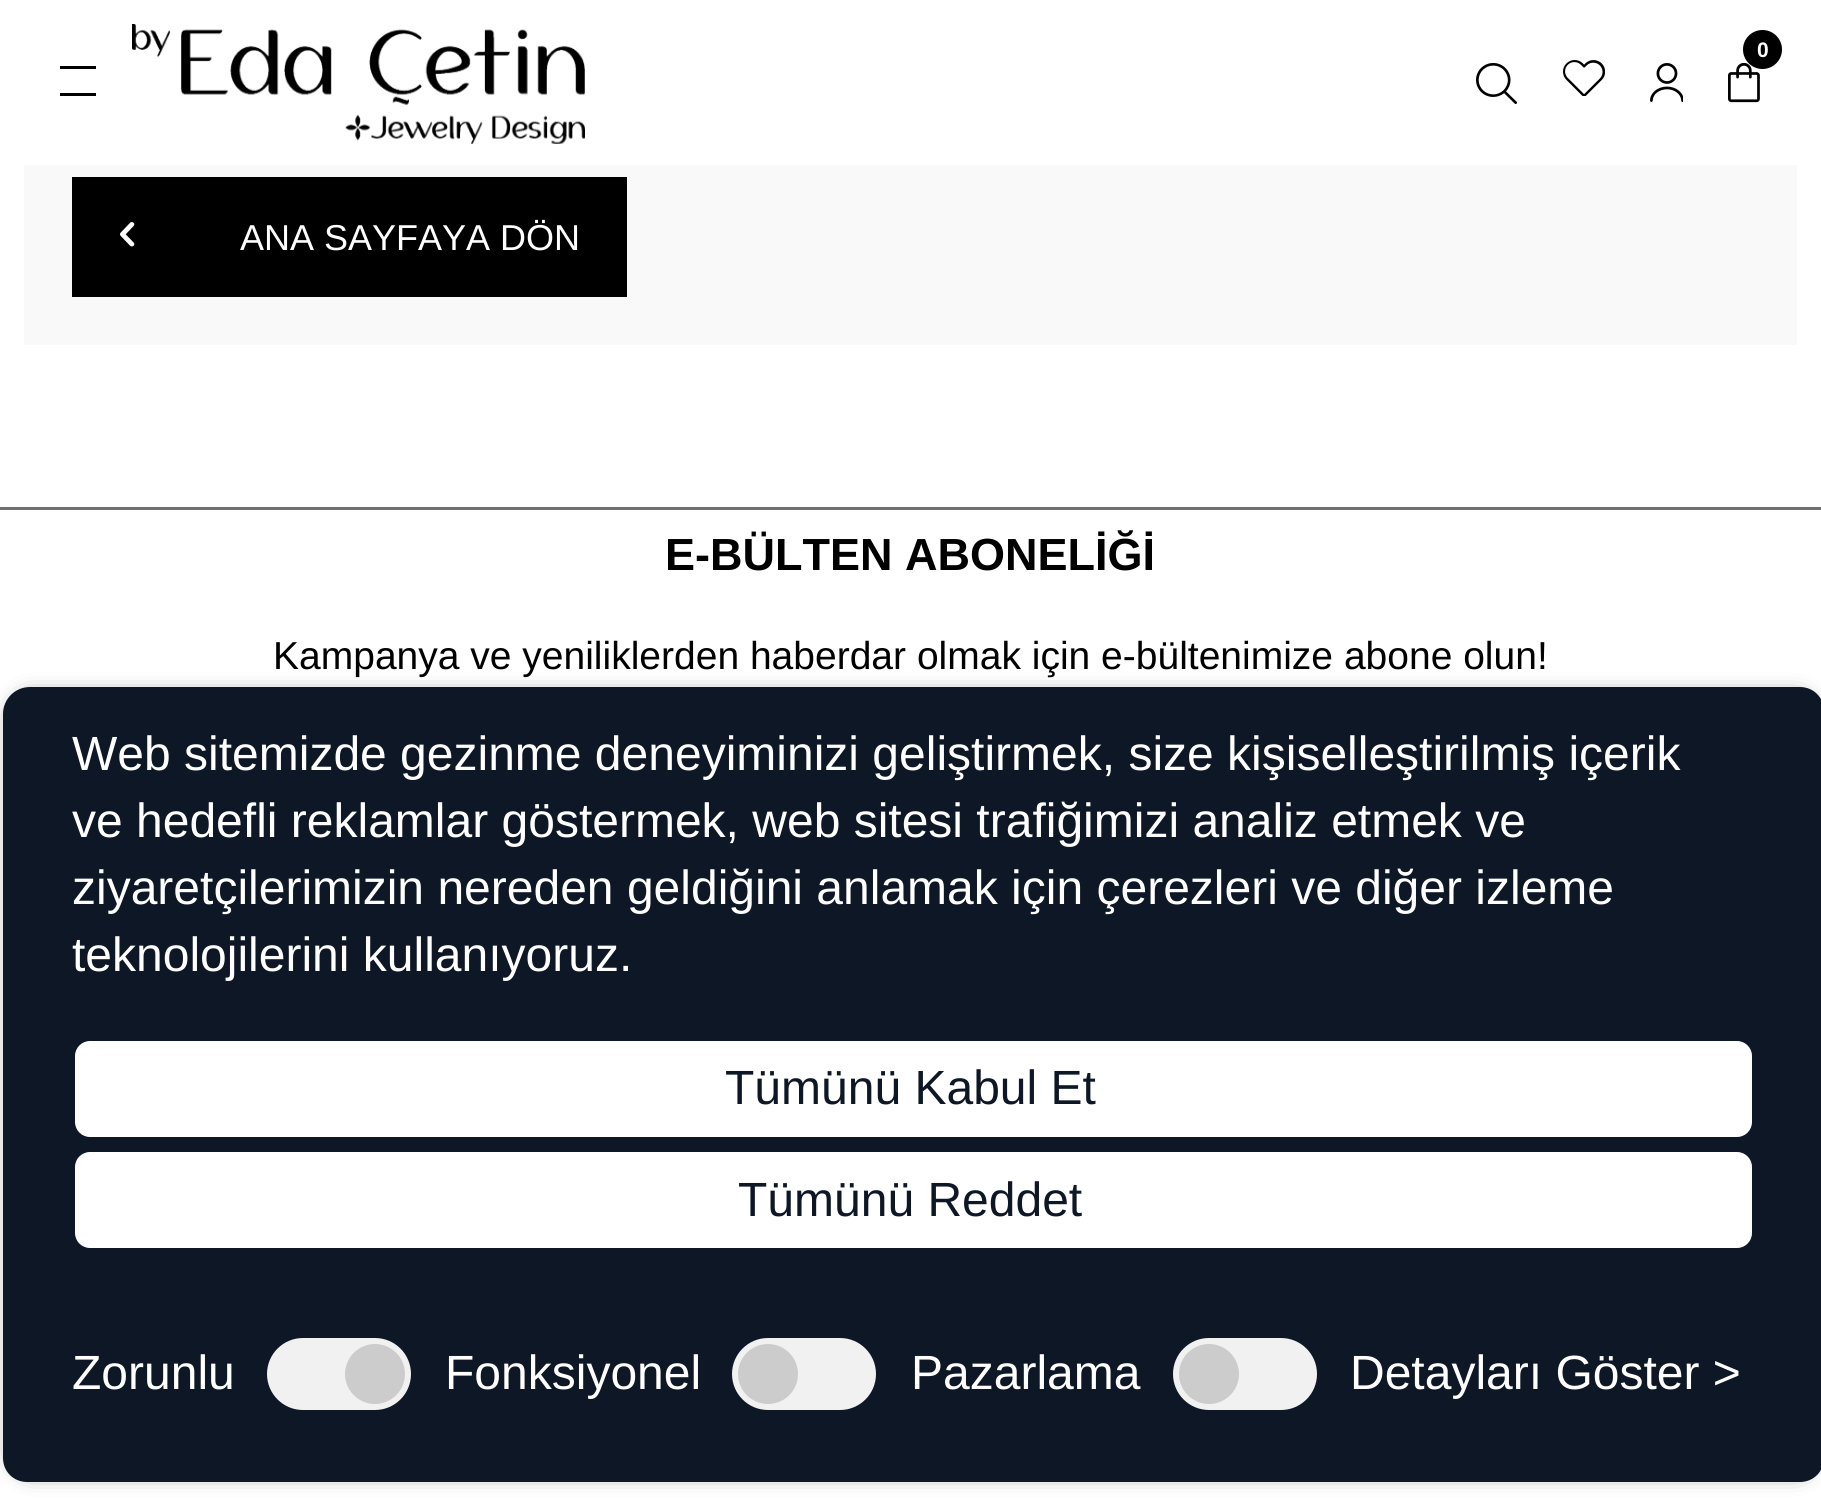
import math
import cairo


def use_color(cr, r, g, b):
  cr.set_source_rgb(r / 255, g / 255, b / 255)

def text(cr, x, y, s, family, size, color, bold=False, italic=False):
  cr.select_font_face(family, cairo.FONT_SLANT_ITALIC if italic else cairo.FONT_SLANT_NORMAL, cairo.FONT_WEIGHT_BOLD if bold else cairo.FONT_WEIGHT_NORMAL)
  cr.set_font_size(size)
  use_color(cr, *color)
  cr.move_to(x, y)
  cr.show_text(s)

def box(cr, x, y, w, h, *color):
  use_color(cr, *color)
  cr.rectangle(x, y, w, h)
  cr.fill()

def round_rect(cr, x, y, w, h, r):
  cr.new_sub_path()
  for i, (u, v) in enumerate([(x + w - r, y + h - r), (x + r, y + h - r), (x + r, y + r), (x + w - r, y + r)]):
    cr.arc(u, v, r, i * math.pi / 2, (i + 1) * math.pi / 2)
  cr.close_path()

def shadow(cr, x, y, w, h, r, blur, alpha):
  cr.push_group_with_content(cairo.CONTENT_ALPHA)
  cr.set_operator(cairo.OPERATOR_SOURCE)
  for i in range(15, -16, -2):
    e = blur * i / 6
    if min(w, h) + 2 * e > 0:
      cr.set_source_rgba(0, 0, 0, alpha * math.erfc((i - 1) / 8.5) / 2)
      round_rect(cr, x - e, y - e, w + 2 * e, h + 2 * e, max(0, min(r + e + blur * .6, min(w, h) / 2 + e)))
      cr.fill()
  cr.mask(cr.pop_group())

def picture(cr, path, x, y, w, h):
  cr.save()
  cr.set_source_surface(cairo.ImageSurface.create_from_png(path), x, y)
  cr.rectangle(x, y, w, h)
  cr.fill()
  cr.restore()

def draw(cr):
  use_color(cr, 255, 255, 255)
  cr.paint()
  picture(cr, "img_01.png", 132, 24, 453, 120)
  picture(cr, "img_02.png", 1728, 63, 32, 40)
  use_color(cr, 0, 0, 0)
  cr.arc(1762.5, 49.5, 19.5, 0, 2 * math.pi)
  cr.fill()
  picture(cr, "img_03.png", 1476, 63, 41, 41)
  picture(cr, "img_04.png", 1563, 60, 42, 36)
  picture(cr, "img_05.png", 1650, 63, 33, 39)
  box(cr, 60, 66, 36, 3, 0, 0, 0)
  box(cr, 60, 93, 36, 3, 0, 0, 0)
  box(cr, 24, 165, 1773, 180, 249, 249, 249)
  box(cr, 72, 177, 555, 120, 0, 0, 0)
  picture(cr, "img_06.png", 120, 222, 15, 25)
  box(cr, 0, 507, 1821, 3, 112, 112, 112)
  cr.save()
  cr.set_fill_rule(cairo.FILL_RULE_EVEN_ODD)
  cr.new_path()
  cr.move_to(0, 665)
  cr.line_to(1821, 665)
  cr.line_to(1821, 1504)
  cr.line_to(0, 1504)
  cr.close_path()
  cr.move_to(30, 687)
  cr.line_to(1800, 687)
  cr.curve_to(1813.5, 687, 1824, 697.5, 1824, 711)
  cr.line_to(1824, 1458)
  cr.curve_to(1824, 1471.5, 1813.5, 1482, 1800, 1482)
  cr.line_to(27, 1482)
  cr.curve_to(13.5, 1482, 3, 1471.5, 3, 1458)
  cr.line_to(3, 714)
  cr.curve_to(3, 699, 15, 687, 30, 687)
  cr.close_path()
  cr.clip()
  use_color(cr, 0, 0, 0)
  shadow(cr, 18, 702, 1791, 765, 12, 12, 1)
  cr.restore()
  use_color(cr, 14, 23, 38)
  cr.new_path()
  cr.move_to(30, 687)
  cr.line_to(1800, 687)
  cr.curve_to(1813.5, 687, 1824, 697.5, 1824, 711)
  cr.line_to(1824, 1458)
  cr.curve_to(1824, 1471.5, 1813.5, 1482, 1800, 1482)
  cr.line_to(27, 1482)
  cr.curve_to(13.5, 1482, 3, 1471.5, 3, 1458)
  cr.line_to(3, 714)
  cr.curve_to(3, 699, 15, 687, 30, 687)
  cr.close_path()
  cr.fill()
  use_color(cr, 255, 255, 255)
  round_rect(cr, 75, 1041, 1677, 96, 15)
  cr.fill()
  round_rect(cr, 75, 1152, 1677, 96, 15)
  cr.fill()
  use_color(cr, 241, 241, 241)
  round_rect(cr, 267, 1338, 144, 72, 36)
  cr.fill()
  use_color(cr, 204, 204, 204)
  cr.arc(375, 1374, 30, 0, 2 * math.pi)
  cr.fill()
  use_color(cr, 241, 241, 241)
  round_rect(cr, 732, 1338, 144, 72, 36)
  cr.fill()
  use_color(cr, 204, 204, 204)
  cr.arc(768, 1374, 30, 0, 2 * math.pi)
  cr.fill()
  use_color(cr, 241, 241, 241)
  round_rect(cr, 1173, 1338, 144, 72, 36)
  cr.fill()
  use_color(cr, 204, 204, 204)
  cr.arc(1209, 1374, 30, 0, 2 * math.pi)
  cr.fill()
  text(cr, 1757, 57, "0", "Liberation Sans", 21, (255, 255, 255), bold=True)
  text(cr, 240, 250, "ANA SAYFAYA DÖN", "Liberation Sans", 36, (255, 255, 255))
  text(cr, 665, 570, "E-BÜLTEN ABONELİĞİ", "Liberation Sans", 45, (0, 0, 0), bold=True)
  text(cr, 273, 669, "Kampanya ve yeniliklerden haberdar olmak için e-bültenimize abone olun!", "Liberation Sans", 39, (0, 0, 0))
  text(cr, 72, 770, "Web sitemizde gezinme deneyiminizi geliştirmek, size kişiselleştirilmiş içerik", "Liberation Sans", 48, (255, 255, 255))
  text(cr, 72, 837, "ve hedefli reklamlar göstermek, web sitesi trafiğimizi analiz etmek ve", "Liberation Sans", 48, (255, 255, 255))
  text(cr, 72, 904, "ziyaretçilerimizin nereden geldiğini anlamak için çerezleri ve diğer izleme", "Liberation Sans", 48, (255, 255, 255))
  text(cr, 72, 971, "teknolojilerini kullanıyoruz.", "Liberation Sans", 48, (255, 255, 255))
  text(cr, 725, 1104, "Tümünü Kabul Et", "Liberation Sans", 48, (14, 23, 38))
  text(cr, 738, 1216, "Tümünü Reddet", "Liberation Sans", 48, (14, 23, 38))
  text(cr, 72, 1389, "Zorunlu", "Liberation Sans", 48, (255, 255, 255))
  text(cr, 445, 1389, "Fonksiyonel", "Liberation Sans", 48, (255, 255, 255))
  text(cr, 911, 1389, "Pazarlama", "Liberation Sans", 48, (255, 255, 255))
  text(cr, 1350, 1389, "Detayları Göster >", "Liberation Sans", 48, (255, 255, 255))


surface = cairo.ImageSurface(cairo.FORMAT_RGB24, 1821, 1505)
cr = cairo.Context(surface)
options = cairo.FontOptions()
options.set_hint_metrics(cairo.HINT_METRICS_OFF)
options.set_hint_style(cairo.HINT_STYLE_NONE)
cr.set_font_options(options)
cr.set_miter_limit(4)
draw(cr)
surface.write_to_png("out.png")
